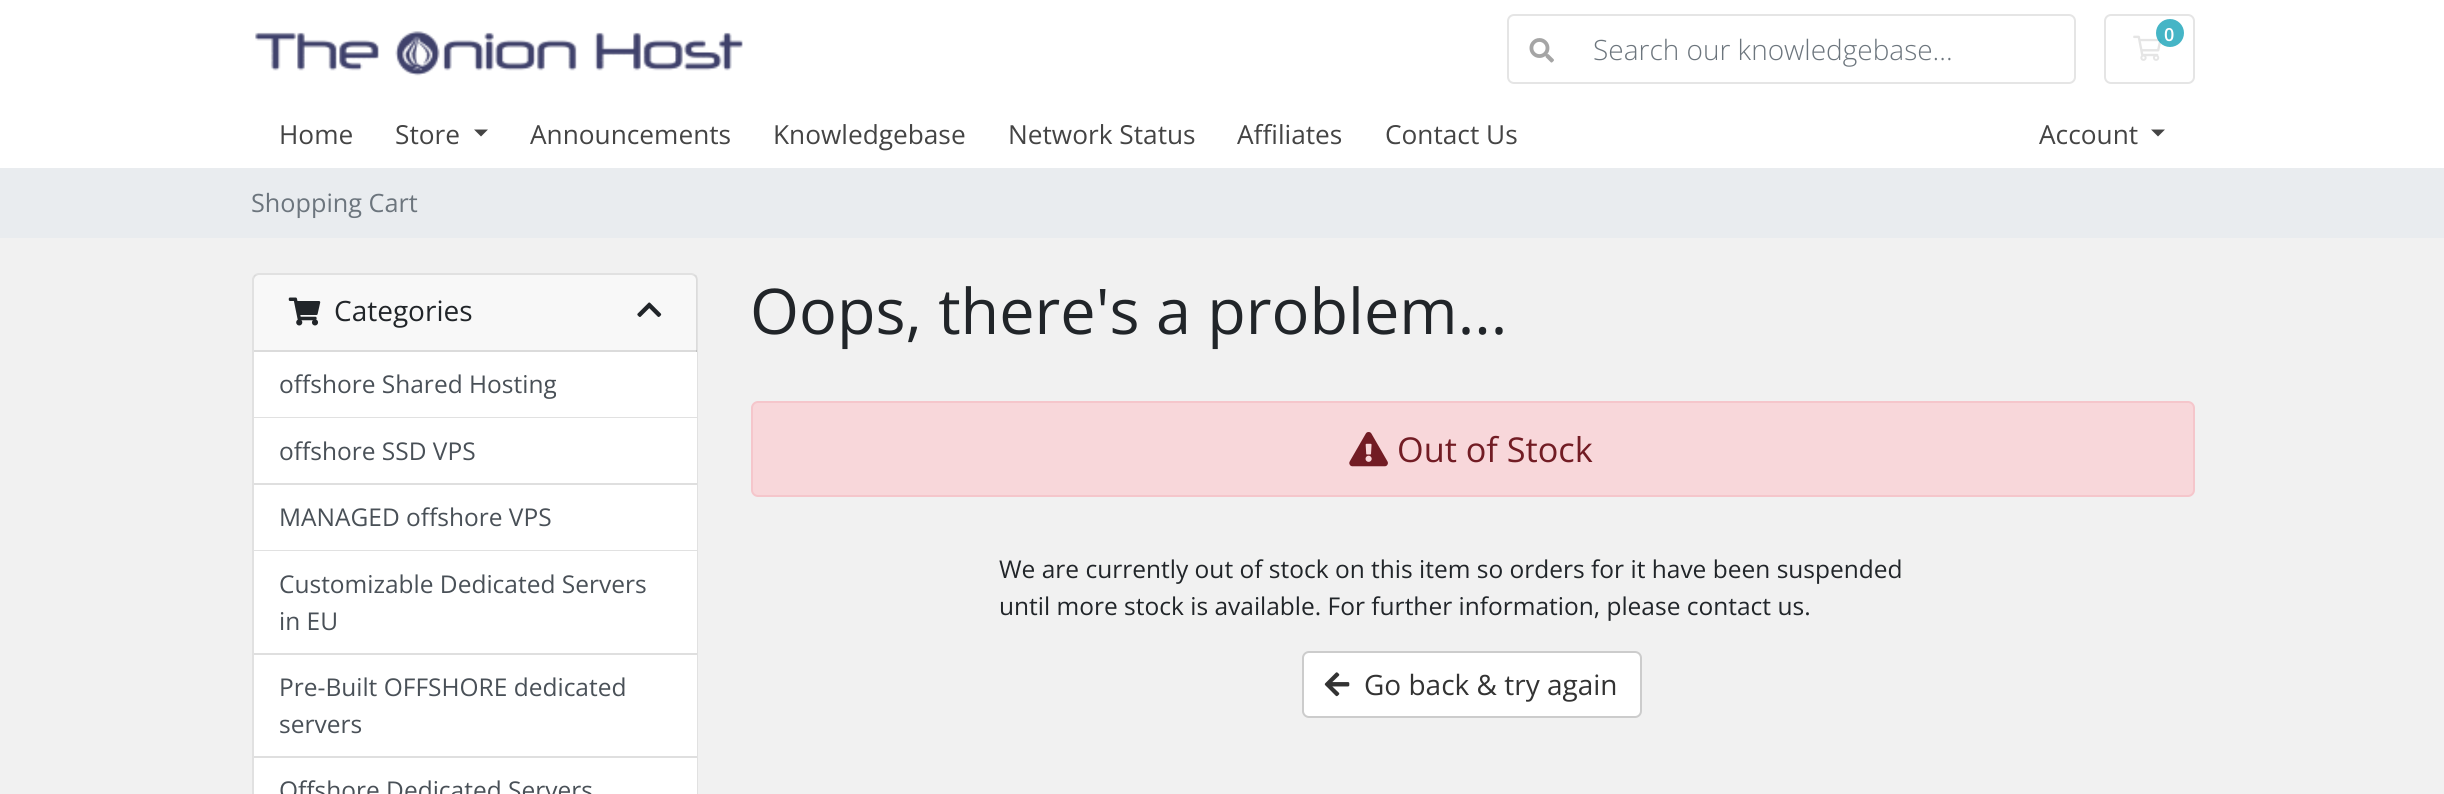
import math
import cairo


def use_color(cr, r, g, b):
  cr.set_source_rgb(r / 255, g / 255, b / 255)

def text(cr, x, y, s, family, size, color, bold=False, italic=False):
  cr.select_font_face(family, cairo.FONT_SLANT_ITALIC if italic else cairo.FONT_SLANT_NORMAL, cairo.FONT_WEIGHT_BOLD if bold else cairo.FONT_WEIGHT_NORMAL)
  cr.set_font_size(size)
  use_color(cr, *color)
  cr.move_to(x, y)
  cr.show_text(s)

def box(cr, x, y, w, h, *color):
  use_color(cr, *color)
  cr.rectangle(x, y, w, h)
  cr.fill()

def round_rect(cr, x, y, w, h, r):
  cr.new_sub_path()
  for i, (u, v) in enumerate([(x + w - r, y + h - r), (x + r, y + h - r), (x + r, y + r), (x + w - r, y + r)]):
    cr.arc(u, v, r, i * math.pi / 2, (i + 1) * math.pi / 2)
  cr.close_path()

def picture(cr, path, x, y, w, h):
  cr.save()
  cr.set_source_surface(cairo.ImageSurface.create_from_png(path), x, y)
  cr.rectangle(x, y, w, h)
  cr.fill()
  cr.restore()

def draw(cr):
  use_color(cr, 241, 241, 241)
  cr.paint()
  box(cr, 0, 0, 2444, 168, 255, 255, 255)
  picture(cr, "img_01.png", 255, 31, 488, 45)
  round_rect(cr, 1508, 15, 567, 68, 6)
  use_color(cr, 229, 229, 229)
  cr.stroke()
  picture(cr, "img_02.png", 1529, 38, 25, 25)
  round_rect(cr, 2105, 15, 89, 68, 6)
  cr.stroke()
  picture(cr, "img_03.png", 2133, 35, 29, 26)
  cr.set_source_rgba(0.09, 0.635, 0.722, 0.8)
  cr.arc(2170, 33, 14, 0, 2 * math.pi)
  cr.fill()
  use_color(cr, 68, 68, 68)
  cr.new_path()
  cr.move_to(474, 129.5)
  cr.line_to(488, 129.5)
  cr.line_to(481, 136.5)
  cr.close_path()
  cr.fill()
  cr.new_path()
  cr.move_to(2151, 129.5)
  cr.line_to(2165, 129.5)
  cr.line_to(2158, 136.5)
  cr.close_path()
  cr.fill()
  box(cr, 0, 168, 2444, 70, 233, 236, 239)
  use_color(cr, 255, 255, 255)
  round_rect(cr, 252, 273, 446, 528, 7)
  cr.fill()
  round_rect(cr, 253, 274, 444, 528, 6)
  cr.set_source_rgba(0, 0, 0, 0.12)
  cr.stroke()
  cr.set_source_rgba(0, 0, 0, 0.03)
  cr.rectangle(254, 275, 443, 77)
  cr.fill()
  cr.set_source_rgba(0, 0, 0, 0.12)
  cr.rectangle(254, 350, 443, 2)
  cr.fill()
  picture(cr, "img_04.png", 288, 297, 33, 29)
  picture(cr, "img_05.png", 637, 302, 25, 15)
  box(cr, 696, 352, 1, 131, 255, 255, 255)
  cr.set_source_rgba(0, 0, 0, 0.12)
  cr.rectangle(254, 417, 443, 1)
  cr.fill()
  box(cr, 254, 483, 443, 2, 223, 223, 223)
  box(cr, 696, 485, 1, 168, 255, 255, 255)
  cr.set_source_rgba(0, 0, 0, 0.12)
  cr.rectangle(254, 550, 443, 1)
  cr.fill()
  box(cr, 254, 653, 443, 2, 223, 223, 223)
  box(cr, 696, 655, 1, 101, 255, 255, 255)
  box(cr, 254, 756, 443, 2, 223, 223, 223)
  box(cr, 696, 758, 1, 36, 255, 255, 255)
  use_color(cr, 248, 215, 218)
  round_rect(cr, 752, 402, 1442, 94, 6)
  cr.fill_preserve()
  use_color(cr, 245, 198, 203)
  cr.stroke()
  picture(cr, "img_06.png", 1349, 432, 39, 35)
  use_color(cr, 255, 255, 255)
  round_rect(cr, 1303, 652, 338, 65, 6)
  cr.fill_preserve()
  use_color(cr, 204, 204, 204)
  cr.stroke()
  picture(cr, "img_07.png", 1324, 672, 26, 25)
  text(cr, 1593, 60, "Search our knowledgebase...", "Open Sans Light", 28, (108, 117, 125))
  text(cr, 2164, 41, "0", "Open Sans SemiBold", 18, (255, 255, 255))
  text(cr, 279, 144, "Home", "Open Sans", 26.25, (68, 68, 68))
  text(cr, 395, 144, "Store", "Open Sans", 26.25, (68, 68, 68))
  text(cr, 530, 144, "Announcements", "Open Sans", 26.25, (68, 68, 68))
  text(cr, 773, 144, "Knowledgebase", "Open Sans", 26.25, (68, 68, 68))
  text(cr, 1008, 144, "Network Status", "Open Sans", 26.25, (68, 68, 68))
  text(cr, 1237, 144, "Affiliates", "Open Sans", 26.25, (68, 68, 68))
  text(cr, 1385, 144, "Contact Us", "Open Sans", 26.25, (68, 68, 68))
  text(cr, 2039, 144, "Account", "Open Sans", 26.25, (68, 68, 68))
  text(cr, 251, 212, "Shopping Cart", "Open Sans", 25.25, (108, 117, 125))
  text(cr, 334, 321, "Categories", "Open Sans", 28, (33, 37, 41))
  text(cr, 279, 393, "offshore Shared Hosting", "Open Sans", 24.5, (73, 80, 87))
  text(cr, 279, 460, "offshore SSD VPS", "Open Sans", 24.5, (73, 80, 87))
  text(cr, 279, 526, "MANAGED offshore VPS", "Open Sans", 24.5, (73, 80, 87))
  text(cr, 279, 593, "Customizable Dedicated Servers", "Open Sans", 24.5, (73, 80, 87))
  text(cr, 279, 630, "in EU", "Open Sans", 24.5, (73, 80, 87))
  text(cr, 279, 696, "Pre-Built OFFSHORE dedicated", "Open Sans", 24.5, (73, 80, 87))
  text(cr, 279, 733, "servers", "Open Sans", 24.5, (73, 80, 87))
  text(cr, 279, 799, "Offshore Dedicated Servers", "Open Sans", 24.5, (73, 80, 87))
  text(cr, 750, 334, "Oops, there's a problem...", "Open Sans", 63, (33, 37, 41))
  text(cr, 1397, 462, "Out of Stock", "Open Sans", 34.25, (114, 28, 36))
  text(cr, 999, 578, "We are currently out of stock on this item so orders for it have been suspended", "Open Sans", 24.5, (33, 37, 41))
  text(cr, 999, 615, "until more stock is available. For further information, please contact us.", "Open Sans", 24.5, (33, 37, 41))
  text(cr, 1364, 695, "Go back & try again", "Open Sans", 28, (51, 51, 51))


surface = cairo.ImageSurface(cairo.FORMAT_RGB24, 2444, 794)
cr = cairo.Context(surface)
options = cairo.FontOptions()
options.set_hint_metrics(cairo.HINT_METRICS_OFF)
options.set_hint_style(cairo.HINT_STYLE_NONE)
cr.set_font_options(options)
cr.set_miter_limit(4)
draw(cr)
surface.write_to_png("out.png")
